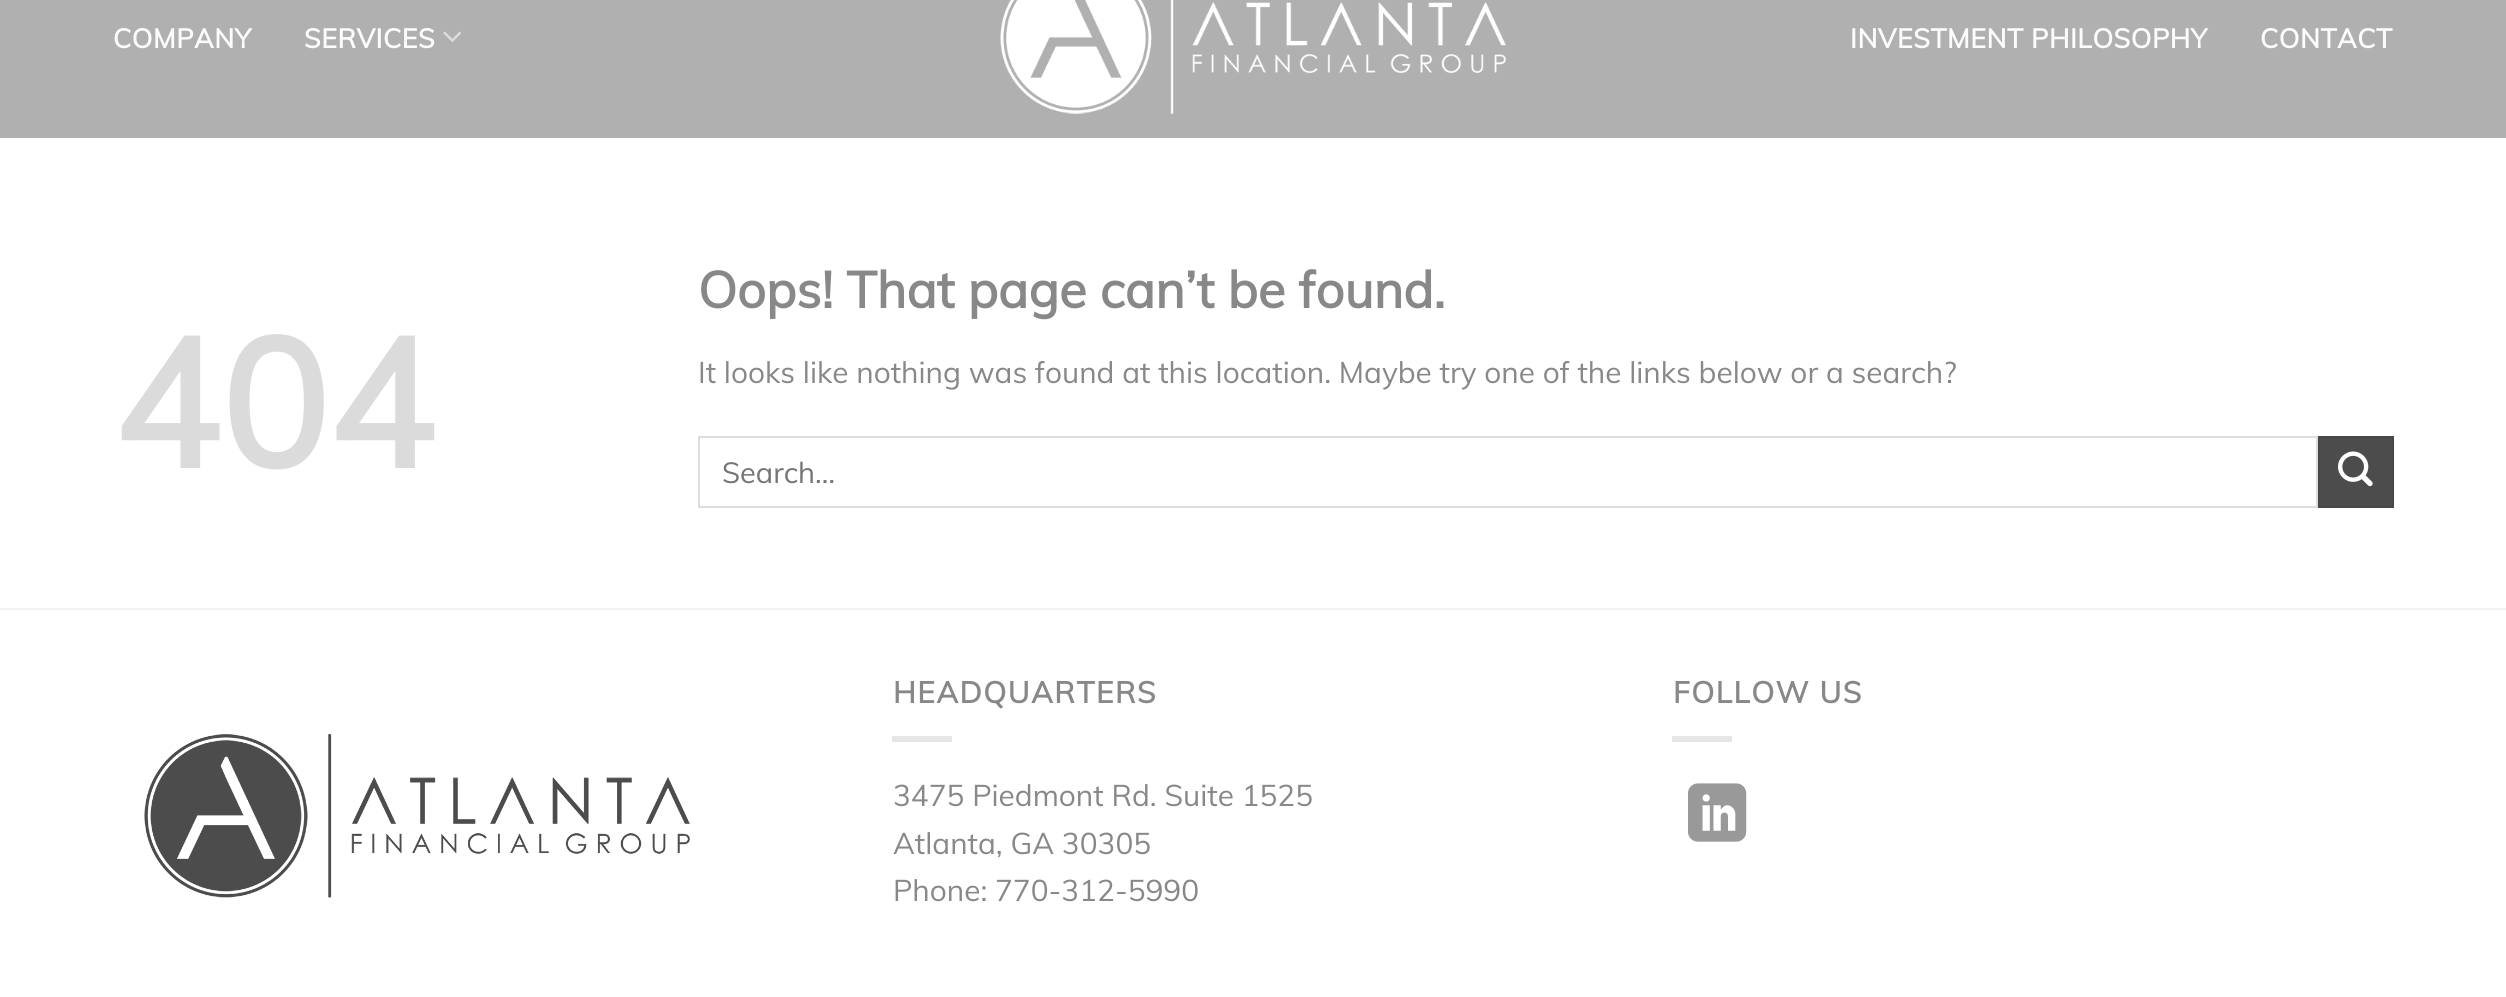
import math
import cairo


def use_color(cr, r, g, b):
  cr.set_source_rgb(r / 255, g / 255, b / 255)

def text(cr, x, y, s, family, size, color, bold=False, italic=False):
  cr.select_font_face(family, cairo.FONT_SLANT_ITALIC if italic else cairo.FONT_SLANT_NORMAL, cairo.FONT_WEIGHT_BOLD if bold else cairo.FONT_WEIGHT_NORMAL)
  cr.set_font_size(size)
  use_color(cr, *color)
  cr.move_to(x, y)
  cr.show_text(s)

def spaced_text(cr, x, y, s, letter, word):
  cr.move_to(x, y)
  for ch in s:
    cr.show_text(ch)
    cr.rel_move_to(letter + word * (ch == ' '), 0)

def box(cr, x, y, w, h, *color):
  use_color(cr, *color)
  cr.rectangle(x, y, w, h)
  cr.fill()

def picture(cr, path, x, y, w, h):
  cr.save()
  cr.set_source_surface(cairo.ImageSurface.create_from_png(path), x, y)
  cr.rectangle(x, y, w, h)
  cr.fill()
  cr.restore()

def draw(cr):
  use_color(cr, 255, 255, 255)
  cr.paint()
  box(cr, 0, 0, 2506, 138, 176, 176, 176)
  picture(cr, "img_01.png", 443, 31, 18, 11)
  picture(cr, "img_02.png", 1000, 0, 506, 114)
  cr.rectangle(699, 437, 1618, 70)
  use_color(cr, 221, 221, 221)
  cr.stroke()
  use_color(cr, 76, 76, 76)
  cr.rectangle(2319, 437, 74, 70)
  cr.fill_preserve()
  use_color(cr, 72, 72, 72)
  cr.stroke()
  picture(cr, "img_03.png", 2338, 451, 35, 36)
  box(cr, 0, 608, 2506, 2, 242, 242, 242)
  box(cr, 892, 736, 60, 6, 230, 230, 230)
  box(cr, 1672, 736, 60, 6, 230, 230, 230)
  picture(cr, "img_04.png", 1688, 783, 59, 59)
  picture(cr, "img_05.png", 144, 734, 546, 164)
  cr.select_font_face("Muli", cairo.FONT_SLANT_NORMAL, cairo.FONT_WEIGHT_BOLD)
  cr.set_font_size(26.75)
  use_color(cr, 252, 252, 252)
  spaced_text(cr, 113, 48, "COMPANY", 0.5, 0)
  spaced_text(cr, 304, 48, "SERVICES", 0.5, 0)
  spaced_text(cr, 1850, 48, "INVESTMENT PHILOSOPHY", 0.5, 0)
  spaced_text(cr, 2260, 48, "CONTACT", 0.5, 0)
  text(cr, 113, 468, "404", "Muli", 179, (219, 219, 219), bold=True)
  text(cr, 698, 308, "Oops! That page can’t be found.", "Muli", 50.6, (136, 136, 136), bold=True)
  text(cr, 698, 383, "It looks like nothing was found at this location. Maybe try one of the links below or a search?", "Muli", 29.75, (136, 136, 136))
  text(cr, 722, 483, "Search…", "Muli", 29, (117, 117, 117))
  cr.select_font_face("Muli", cairo.FONT_SLANT_NORMAL, cairo.FONT_WEIGHT_BOLD)
  cr.set_font_size(29.75)
  use_color(cr, 136, 136, 136)
  spaced_text(cr, 893, 703, "HEADQUARTERS", 1.5, 0)
  text(cr, 893, 806, "3475 Piedmont Rd. Suite 1525", "Muli", 29.75, (136, 136, 136))
  text(cr, 893, 854, "Atlanta, GA 30305", "Muli", 29.75, (136, 136, 136))
  text(cr, 893, 901, "Phone: 770-312-5990", "Muli", 29.75, (136, 136, 136))
  cr.select_font_face("Muli", cairo.FONT_SLANT_NORMAL, cairo.FONT_WEIGHT_BOLD)
  spaced_text(cr, 1673, 703, "FOLLOW US", 1.5, 0)


surface = cairo.ImageSurface(cairo.FORMAT_RGB24, 2506, 997)
cr = cairo.Context(surface)
options = cairo.FontOptions()
options.set_hint_metrics(cairo.HINT_METRICS_OFF)
options.set_hint_style(cairo.HINT_STYLE_NONE)
cr.set_font_options(options)
cr.set_miter_limit(4)
draw(cr)
surface.write_to_png("out.png")
